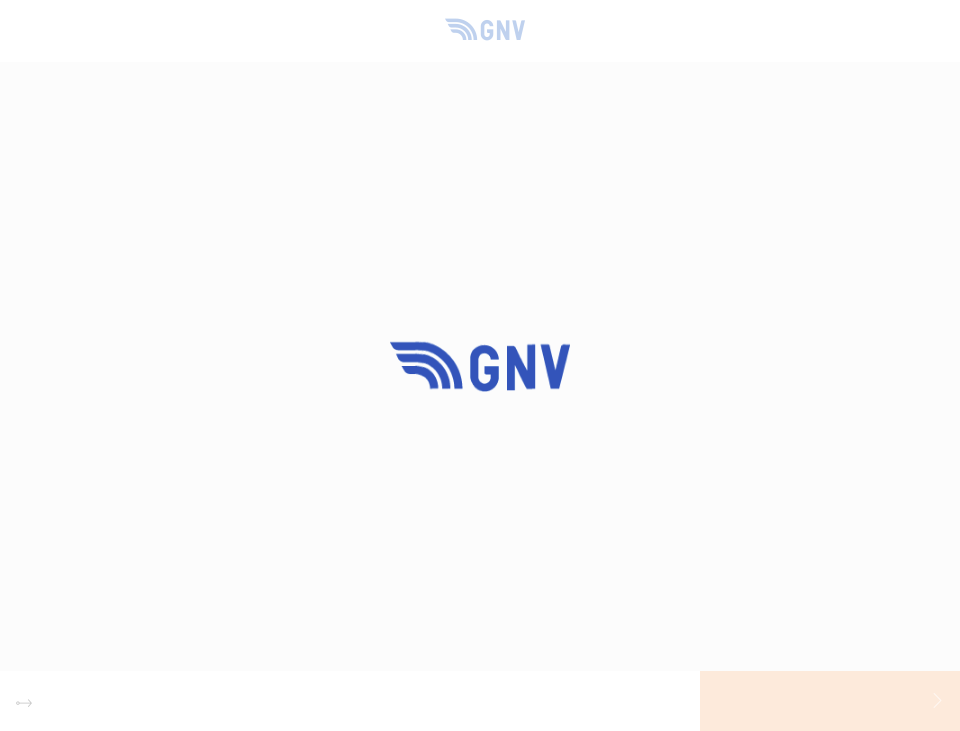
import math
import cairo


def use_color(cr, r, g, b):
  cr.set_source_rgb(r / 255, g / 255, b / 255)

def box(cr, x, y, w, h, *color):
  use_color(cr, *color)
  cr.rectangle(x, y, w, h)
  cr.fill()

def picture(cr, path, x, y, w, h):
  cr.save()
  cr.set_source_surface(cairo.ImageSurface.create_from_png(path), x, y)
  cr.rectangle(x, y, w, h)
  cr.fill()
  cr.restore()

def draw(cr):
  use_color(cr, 252, 252, 252)
  cr.paint()
  box(cr, 0, 0, 960, 62, 255, 255, 255)
  picture(cr, "img_01.png", 445, 18, 80, 23)
  box(cr, 0, 671, 700, 60, 255, 255, 255)
  picture(cr, "img_02.png", 16, 699, 16, 8)
  box(cr, 700, 671, 260, 60, 253, 234, 219)
  picture(cr, "img_03.png", 933, 693, 9, 15)
  picture(cr, "img_04.png", 390, 341, 180, 51)


surface = cairo.ImageSurface(cairo.FORMAT_RGB24, 960, 731)
cr = cairo.Context(surface)
options = cairo.FontOptions()
options.set_hint_metrics(cairo.HINT_METRICS_OFF)
options.set_hint_style(cairo.HINT_STYLE_NONE)
cr.set_font_options(options)
cr.set_miter_limit(4)
draw(cr)
surface.write_to_png("out.png")
